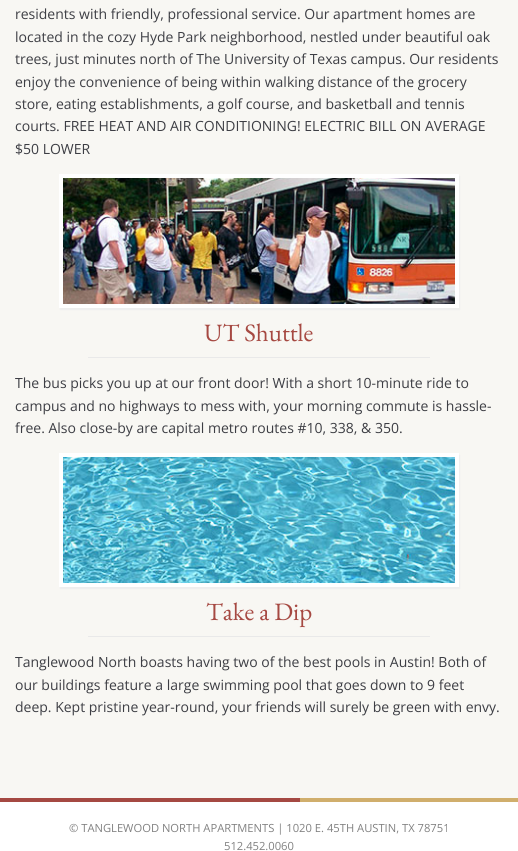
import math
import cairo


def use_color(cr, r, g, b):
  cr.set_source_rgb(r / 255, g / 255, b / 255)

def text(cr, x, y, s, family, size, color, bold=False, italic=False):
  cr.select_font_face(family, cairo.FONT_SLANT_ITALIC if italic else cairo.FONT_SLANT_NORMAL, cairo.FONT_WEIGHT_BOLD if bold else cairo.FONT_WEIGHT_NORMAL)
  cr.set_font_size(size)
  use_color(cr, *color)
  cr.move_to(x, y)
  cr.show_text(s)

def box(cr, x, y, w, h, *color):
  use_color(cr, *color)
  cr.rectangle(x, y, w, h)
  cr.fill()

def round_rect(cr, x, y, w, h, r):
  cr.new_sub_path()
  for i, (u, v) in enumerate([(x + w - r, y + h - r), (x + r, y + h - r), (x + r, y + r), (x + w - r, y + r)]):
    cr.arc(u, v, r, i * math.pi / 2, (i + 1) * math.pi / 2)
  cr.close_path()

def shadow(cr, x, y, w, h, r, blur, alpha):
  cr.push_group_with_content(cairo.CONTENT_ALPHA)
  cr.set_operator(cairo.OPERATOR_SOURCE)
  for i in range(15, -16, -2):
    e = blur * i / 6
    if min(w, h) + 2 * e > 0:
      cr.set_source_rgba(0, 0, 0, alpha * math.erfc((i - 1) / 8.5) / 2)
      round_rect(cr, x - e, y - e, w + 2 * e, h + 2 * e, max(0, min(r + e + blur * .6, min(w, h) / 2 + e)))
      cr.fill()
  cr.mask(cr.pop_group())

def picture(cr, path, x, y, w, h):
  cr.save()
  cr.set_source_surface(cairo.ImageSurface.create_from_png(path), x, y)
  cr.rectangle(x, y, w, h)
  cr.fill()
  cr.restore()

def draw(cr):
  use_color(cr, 255, 255, 255)
  cr.paint()
  box(cr, 0, 0, 518, 798, 248, 247, 243)
  use_color(cr, 238, 238, 238)
  shadow(cr, 60, 176, 400, 134, 0, 0.5, 1)
  picture(cr, "img_01.png", 63, 178, 392, 126)
  cr.rectangle(61, 176, 396, 130)
  use_color(cr, 255, 255, 255)
  cr.set_line_width(4)
  cr.stroke()
  box(cr, 88, 357, 342, 1, 233, 233, 233)
  use_color(cr, 238, 238, 238)
  shadow(cr, 60, 455, 400, 134, 0, 0.5, 1)
  picture(cr, "img_02.png", 63, 457, 392, 126)
  cr.rectangle(61, 455, 396, 130)
  use_color(cr, 255, 255, 255)
  cr.stroke()
  box(cr, 88, 636, 342, 1, 233, 233, 233)
  picture(cr, "img_03.png", 0, 798, 518, 4)
  text(cr, 15, 19, "residents with friendly, professional service. Our apartment homes are", "Open Sans", 14, (61, 62, 68))
  text(cr, 15, 42, "located in the cozy Hyde Park neighborhood, nestled under beautiful oak", "Open Sans", 14, (61, 62, 68))
  text(cr, 15, 64, "trees, just minutes north of The University of Texas campus. Our residents", "Open Sans", 14, (61, 62, 68))
  text(cr, 15, 87, "enjoy the convenience of being within walking distance of the grocery", "Open Sans", 14, (61, 62, 68))
  text(cr, 15, 109, "store, eating establishments, a golf course, and basketball and tennis", "Open Sans", 14, (61, 62, 68))
  text(cr, 15, 131, "courts. FREE HEAT AND AIR CONDITIONING! ELECTRIC BILL ON AVERAGE", "Open Sans", 14, (61, 62, 68))
  text(cr, 15, 154, "$50 LOWER", "Open Sans", 14, (61, 62, 68))
  text(cr, 204, 341, "UT Shuttle", "EB Garamond", 25, (166, 73, 66))
  text(cr, 15, 388, "The bus picks you up at our front door! With a short 10-minute ride to", "Open Sans", 14, (61, 62, 68))
  text(cr, 15, 411, "campus and no highways to mess with, your morning commute is hassle-", "Open Sans", 14, (61, 62, 68))
  text(cr, 15, 433, "free. Also close-by are capital metro routes #10, 338, & 350.", "Open Sans", 14, (61, 62, 68))
  text(cr, 206, 620, "Take a Dip", "EB Garamond", 25, (166, 73, 66))
  text(cr, 15, 667, "Tanglewood North boasts having two of the best pools in Austin! Both of", "Open Sans", 14, (61, 62, 68))
  text(cr, 15, 690, "our buildings feature a large swimming pool that goes down to 9 feet", "Open Sans", 14, (61, 62, 68))
  text(cr, 15, 712, "deep. Kept pristine year-round, your friends will surely be green with envy.", "Open Sans", 14, (61, 62, 68))
  text(cr, 69, 832, "© TANGLEWOOD NORTH APARTMENTS | 1020 E. 45TH AUSTIN, TX 78751", "Open Sans", 11.2, (129, 129, 129))
  text(cr, 224, 850, "512.452.0060", "Open Sans", 11.2, (129, 129, 129))


surface = cairo.ImageSurface(cairo.FORMAT_RGB24, 518, 851)
cr = cairo.Context(surface)
options = cairo.FontOptions()
options.set_hint_metrics(cairo.HINT_METRICS_OFF)
options.set_hint_style(cairo.HINT_STYLE_NONE)
cr.set_font_options(options)
cr.set_miter_limit(4)
draw(cr)
surface.write_to_png("out.png")
